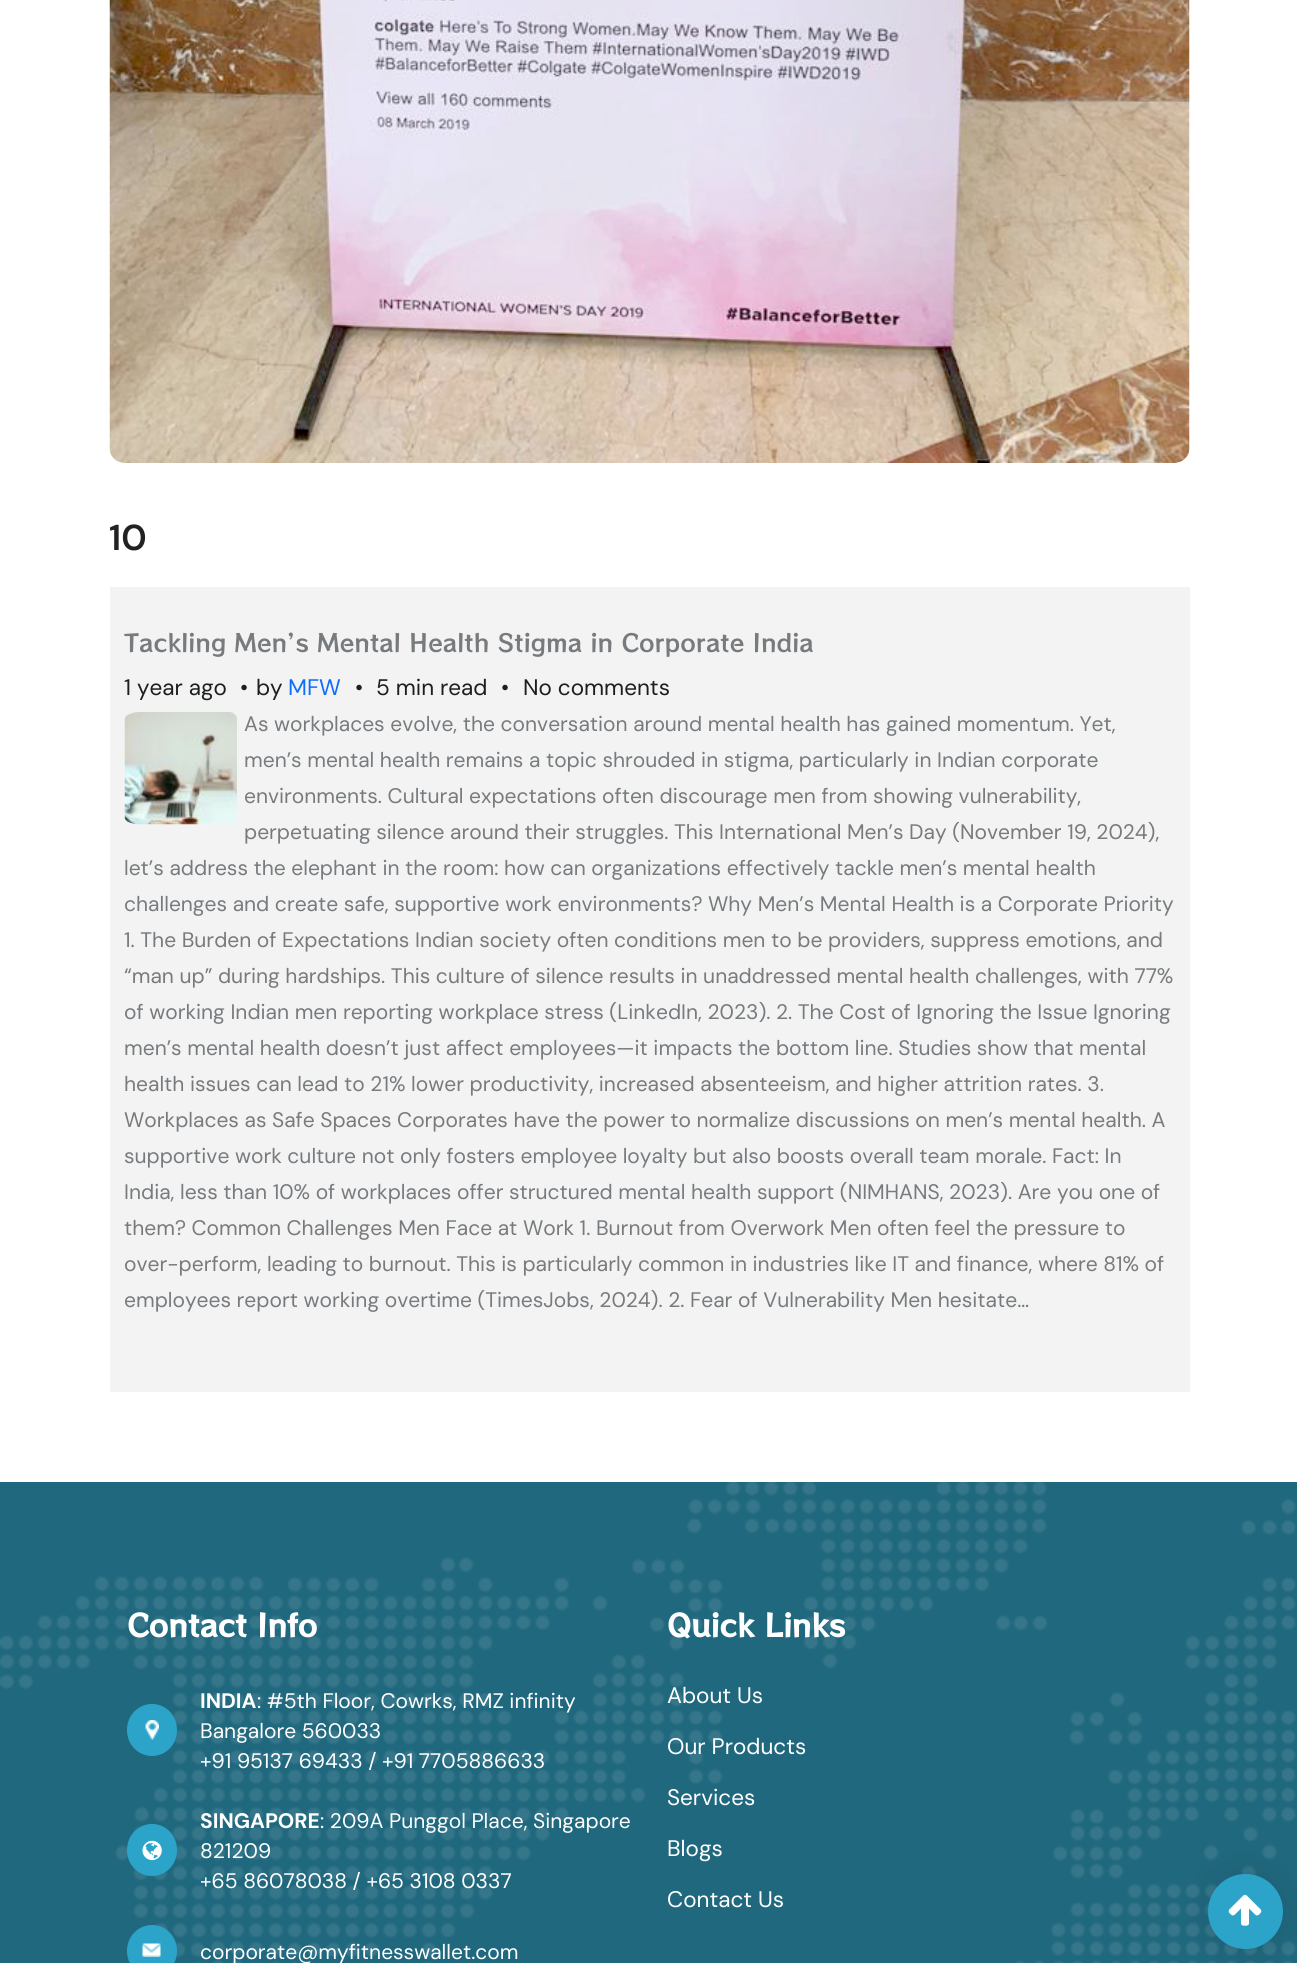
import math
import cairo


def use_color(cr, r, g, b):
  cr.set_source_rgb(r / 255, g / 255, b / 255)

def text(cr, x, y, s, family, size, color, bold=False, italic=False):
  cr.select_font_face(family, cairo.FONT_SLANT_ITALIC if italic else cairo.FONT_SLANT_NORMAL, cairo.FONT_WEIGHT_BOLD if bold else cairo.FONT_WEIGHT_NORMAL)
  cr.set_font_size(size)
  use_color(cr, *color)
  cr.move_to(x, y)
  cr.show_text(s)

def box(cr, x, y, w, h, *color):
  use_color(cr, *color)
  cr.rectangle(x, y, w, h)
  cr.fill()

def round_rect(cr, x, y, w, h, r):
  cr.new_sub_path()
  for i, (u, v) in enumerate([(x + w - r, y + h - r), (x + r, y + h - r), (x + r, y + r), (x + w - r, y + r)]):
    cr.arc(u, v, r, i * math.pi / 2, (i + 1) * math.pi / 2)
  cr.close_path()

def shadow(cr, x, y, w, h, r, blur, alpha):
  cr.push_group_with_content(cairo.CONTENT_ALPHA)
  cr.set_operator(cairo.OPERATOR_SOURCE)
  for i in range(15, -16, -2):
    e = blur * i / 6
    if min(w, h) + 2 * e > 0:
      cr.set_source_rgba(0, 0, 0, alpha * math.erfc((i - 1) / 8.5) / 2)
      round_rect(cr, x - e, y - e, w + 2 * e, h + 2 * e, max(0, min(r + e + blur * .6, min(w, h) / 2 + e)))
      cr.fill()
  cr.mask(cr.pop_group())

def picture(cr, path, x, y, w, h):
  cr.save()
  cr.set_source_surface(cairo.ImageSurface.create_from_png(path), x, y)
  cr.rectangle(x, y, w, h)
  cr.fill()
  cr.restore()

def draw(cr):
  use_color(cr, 255, 255, 255)
  cr.paint()
  picture(cr, "img_01.png", 109, 0, 1081, 463)
  box(cr, 110, 587, 1080, 805, 243, 243, 243)
  picture(cr, "img_02.png", 124, 712, 113, 113)
  box(cr, 0, 1482, 1297, 481, 32, 104, 126)
  picture(cr, "img_03.png", 0, 1482, 1296, 481)
  use_color(cr, 44, 164, 201)
  cr.new_path()
  cr.move_to(152, 1704)
  cr.curve_to(166, 1704, 177, 1715.5, 177, 1730)
  cr.curve_to(177, 1744.5, 166, 1756, 152, 1756)
  cr.curve_to(138, 1756, 127, 1744.5, 127, 1730)
  cr.curve_to(127, 1715.5, 138, 1704, 152, 1704)
  cr.close_path()
  cr.fill()
  picture(cr, "img_04.png", 145, 1720, 14, 20)
  cr.new_path()
  cr.move_to(152, 1824)
  cr.curve_to(166, 1824, 177, 1835.5, 177, 1850)
  cr.curve_to(177, 1864.5, 166, 1876, 152, 1876)
  cr.curve_to(138, 1876, 127, 1864.5, 127, 1850)
  cr.curve_to(127, 1835.5, 138, 1824, 152, 1824)
  cr.close_path()
  cr.fill()
  picture(cr, "img_05.png", 142, 1840, 20, 21)
  cr.new_path()
  cr.move_to(152, 1925)
  cr.curve_to(166, 1925, 177, 1936.5, 177, 1951)
  cr.curve_to(177, 1965.5, 166, 1977, 152, 1977)
  cr.curve_to(138, 1977, 127, 1965.5, 127, 1951)
  cr.curve_to(127, 1936.5, 138, 1925, 152, 1925)
  cr.close_path()
  cr.fill()
  picture(cr, "img_06.png", 142, 1943, 19, 14)
  use_color(cr, 0, 0, 0)
  shadow(cr, 1208, 1874, 75, 75, 37.5, 15, 0.1)
  use_color(cr, 44, 164, 201)
  cr.arc(1245.5, 1911.5, 37.5, 0, 2 * math.pi)
  cr.fill()
  picture(cr, "img_07.png", 1228, 1894, 34, 32)
  text(cr, 109, 550, "10", "DM Sans SemiBold", 36, (34, 34, 34))
  text(cr, 124, 652, "Tackling Men’s Mental Health Stigma in Corporate India", "RocknRoll One", 24, (119, 123, 126))
  text(cr, 124, 695, "1 year ago", "DM Sans", 22.5, (27, 31, 32))
  text(cr, 240, 695, "•", "DM Sans", 22.5, (27, 31, 32))
  text(cr, 256, 695, "by", "DM Sans", 22.5, (27, 31, 32))
  text(cr, 288, 695, "MFW", "DM Sans", 22.5, (13, 110, 253))
  text(cr, 355, 695, "•", "DM Sans", 22.5, (27, 31, 32))
  text(cr, 376, 695, "5 min read", "DM Sans", 22.5, (27, 31, 32))
  text(cr, 501, 695, "•", "DM Sans", 22.5, (27, 31, 32))
  text(cr, 523, 695, "No comments", "DM Sans", 22.5, (27, 31, 32))
  text(cr, 244, 731, "As workplaces evolve, the conversation around mental health has gained momentum. Yet,", "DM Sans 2", 21, (119, 123, 126))
  text(cr, 244, 767, "men’s mental health remains a topic shrouded in stigma, particularly in Indian corporate", "DM Sans 2", 21, (119, 123, 126))
  text(cr, 244, 803, "environments. Cultural expectations often discourage men from showing vulnerability,", "DM Sans 2", 21, (119, 123, 126))
  text(cr, 244, 839, "perpetuating silence around their struggles. This International Men’s Day (November 19, 2024),", "DM Sans 2", 21, (119, 123, 126))
  text(cr, 124, 875, "let’s address the elephant in the room: how can organizations effectively tackle men’s mental health", "DM Sans 2", 21, (119, 123, 126))
  text(cr, 124, 911, "challenges and create safe, supportive work environments? Why Men’s Mental Health is a Corporate Priority", "DM Sans 2", 21, (119, 123, 126))
  text(cr, 124, 947, "1. The Burden of Expectations Indian society often conditions men to be providers, suppress emotions, and", "DM Sans 2", 21, (119, 123, 126))
  text(cr, 124, 983, "“man up” during hardships. This culture of silence results in unaddressed mental health challenges, with 77%", "DM Sans 2", 21, (119, 123, 126))
  text(cr, 124, 1019, "of working Indian men reporting workplace stress (LinkedIn, 2023). 2. The Cost of Ignoring the Issue Ignoring", "DM Sans 2", 21, (119, 123, 126))
  text(cr, 124, 1055, "men’s mental health doesn’t just affect employees—it impacts the bottom line. Studies show that mental", "DM Sans 2", 21, (119, 123, 126))
  text(cr, 124, 1091, "health issues can lead to 21% lower productivity, increased absenteeism, and higher attrition rates. 3.", "DM Sans 2", 21, (119, 123, 126))
  text(cr, 124, 1127, "Workplaces as Safe Spaces Corporates have the power to normalize discussions on men’s mental health. A", "DM Sans 2", 21, (119, 123, 126))
  text(cr, 124, 1163, "supportive work culture not only fosters employee loyalty but also boosts overall team morale. Fact: In", "DM Sans 2", 21, (119, 123, 126))
  text(cr, 124, 1199, "India, less than 10% of workplaces offer structured mental health support (NIMHANS, 2023). Are you one of", "DM Sans 2", 21, (119, 123, 126))
  text(cr, 124, 1235, "them? Common Challenges Men Face at Work 1. Burnout from Overwork Men often feel the pressure to", "DM Sans 2", 21, (119, 123, 126))
  text(cr, 124, 1271, "over-perform, leading to burnout. This is particularly common in industries like IT and finance, where 81% of", "DM Sans 2", 21, (119, 123, 126))
  text(cr, 124, 1307, "employees report working overtime (TimesJobs, 2024). 2. Fear of Vulnerability Men hesitate…", "DM Sans 2", 21, (119, 123, 126))
  text(cr, 127, 1637, "Contact Info", "RocknRoll One", 30, (255, 255, 255), bold=True)
  text(cr, 200, 1708, "INDIA", "DM Sans", 21, (255, 255, 255), bold=True)
  text(cr, 257, 1708, ": #5th Floor, Cowrks, RMZ infinity", "DM Sans 2", 21, (255, 255, 255))
  text(cr, 200, 1738, "Bangalore 560033", "DM Sans 2", 21, (255, 255, 255))
  text(cr, 200, 1768, "+91 95137 69433 / +91 7705886633", "DM Sans 2", 21, (255, 255, 255))
  text(cr, 200, 1828, "SINGAPORE", "DM Sans", 21, (255, 255, 255), bold=True)
  text(cr, 320, 1828, ": 209A Punggol Place, Singapore", "DM Sans 2", 21, (255, 255, 255))
  text(cr, 200, 1858, "821209", "DM Sans 2", 21, (255, 255, 255))
  text(cr, 200, 1888, "+65 86078038 / +65 3108 0337", "DM Sans 2", 21, (255, 255, 255))
  text(cr, 200, 1959, "corporate@myfitnesswallet.com", "DM Sans 2", 21, (255, 255, 255))
  text(cr, 667, 1637, "Quick Links", "RocknRoll One", 30, (255, 255, 255), bold=True)
  text(cr, 667, 1703, "About Us", "DM Sans", 22.5, (255, 255, 255))
  text(cr, 667, 1754, "Our Products", "DM Sans", 22.5, (255, 255, 255))
  text(cr, 667, 1805, "Services", "DM Sans", 22.5, (255, 255, 255))
  text(cr, 667, 1856, "Blogs", "DM Sans", 22.5, (255, 255, 255))
  text(cr, 667, 1907, "Contact Us", "DM Sans", 22.5, (255, 255, 255))


surface = cairo.ImageSurface(cairo.FORMAT_RGB24, 1297, 1963)
cr = cairo.Context(surface)
options = cairo.FontOptions()
options.set_hint_metrics(cairo.HINT_METRICS_OFF)
options.set_hint_style(cairo.HINT_STYLE_NONE)
cr.set_font_options(options)
cr.set_miter_limit(4)
draw(cr)
surface.write_to_png("out.png")
